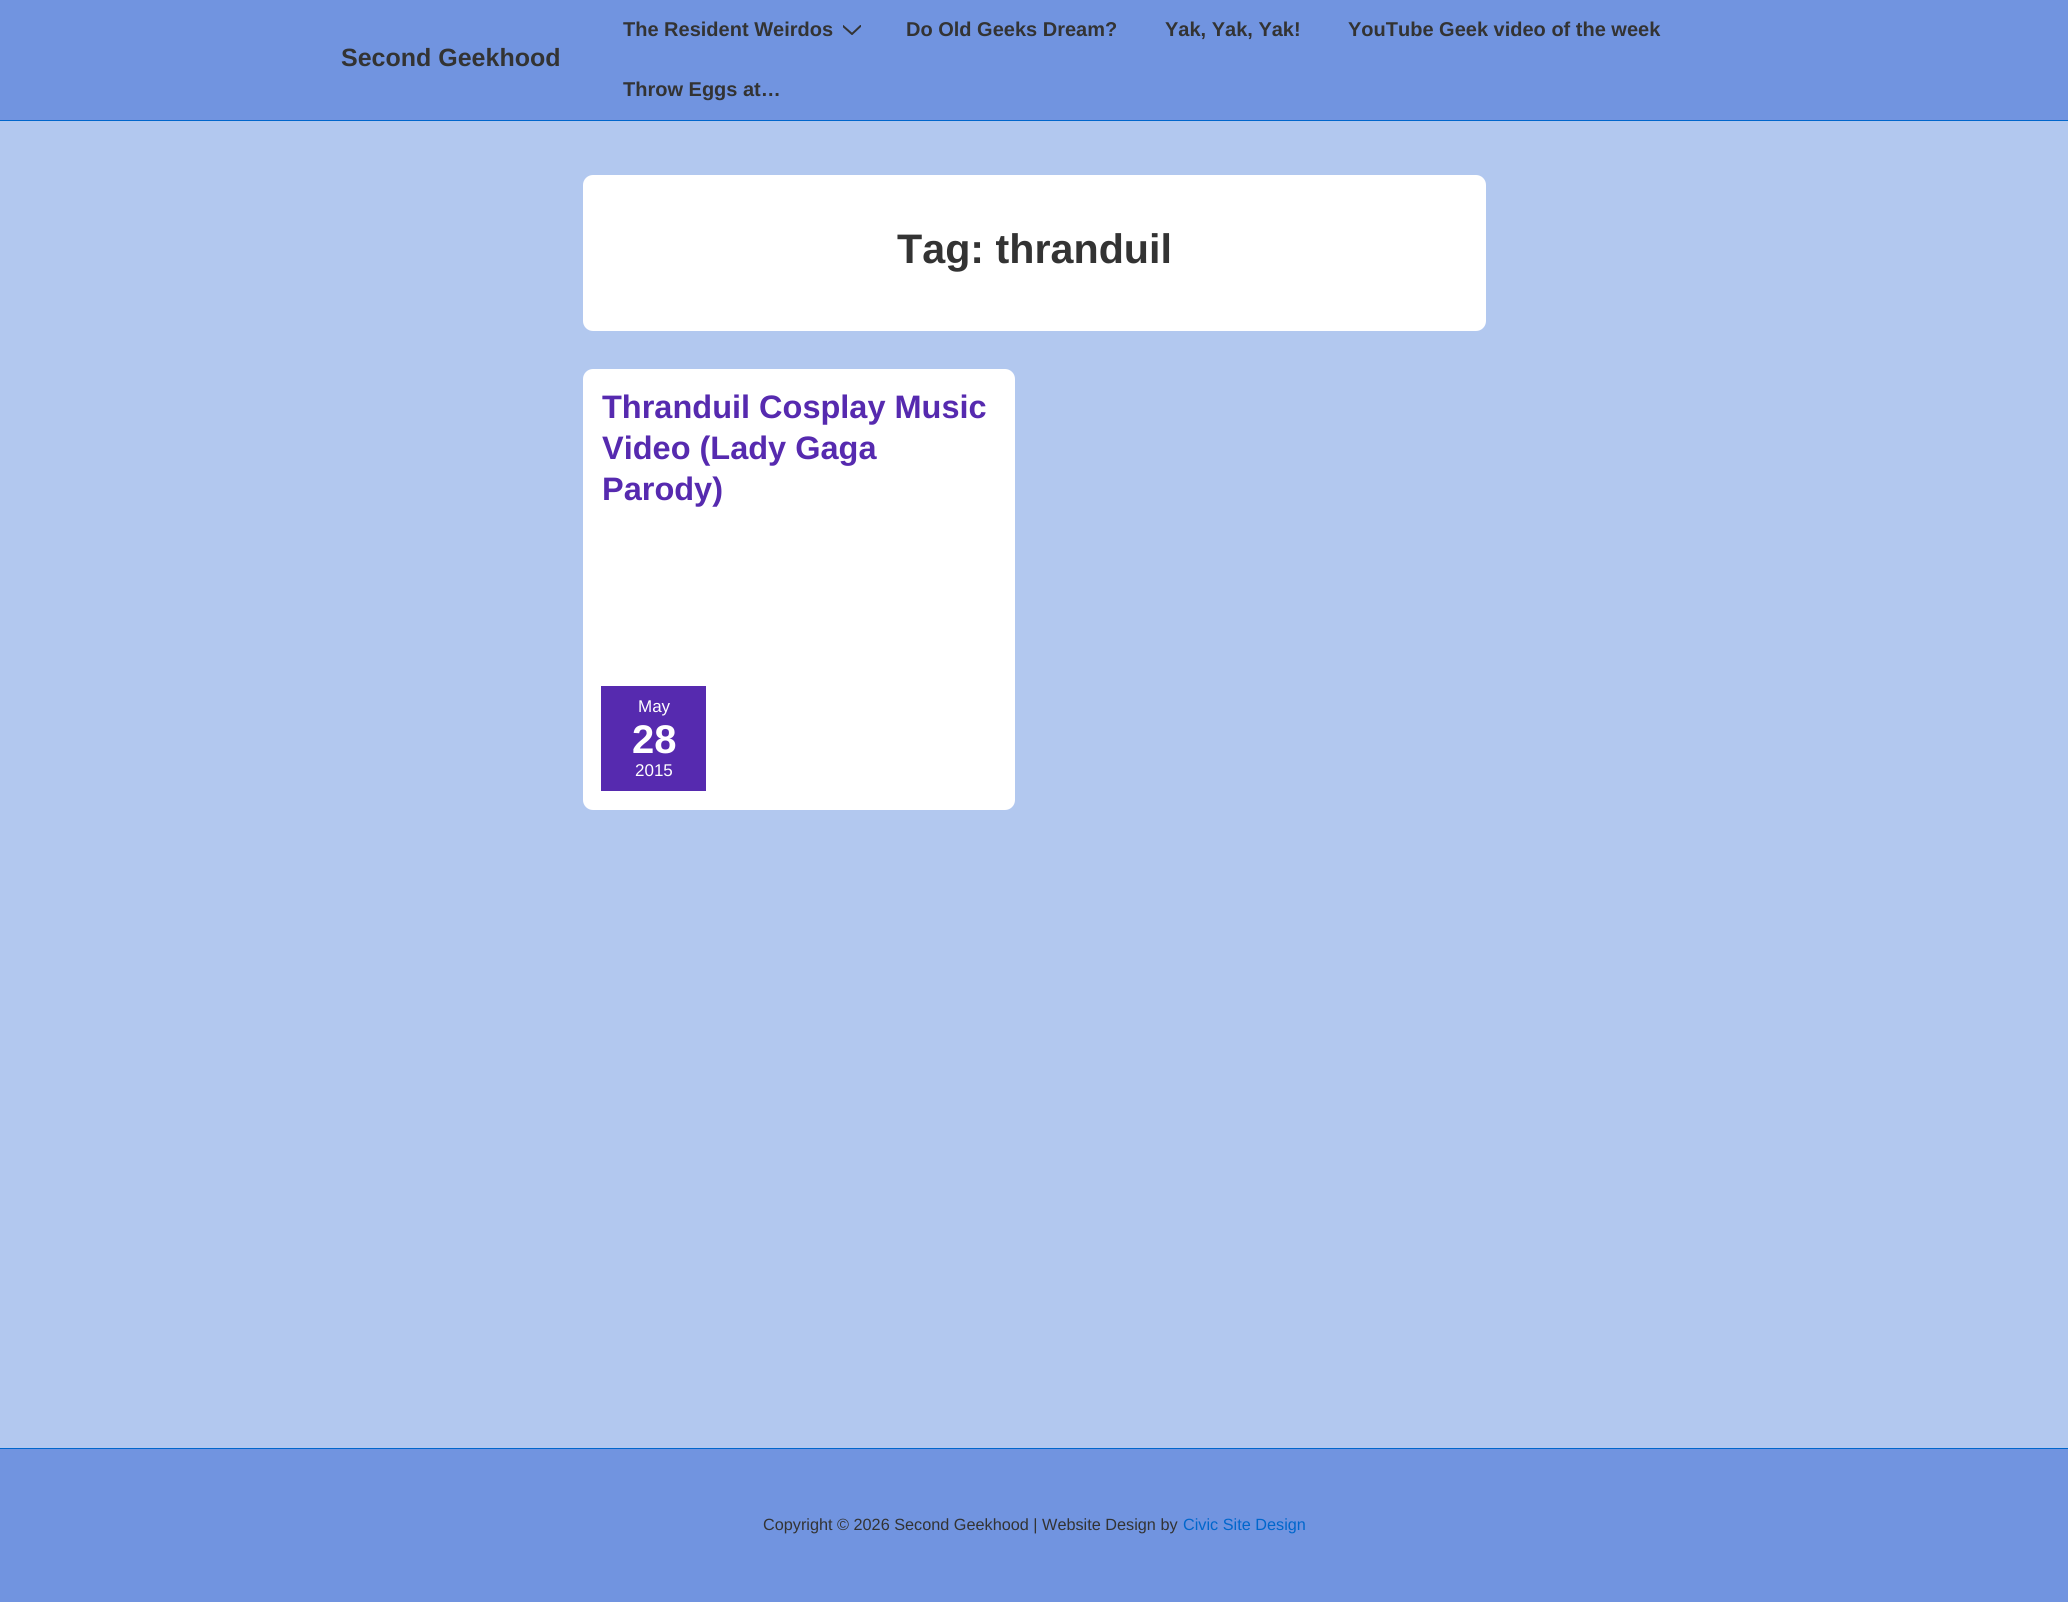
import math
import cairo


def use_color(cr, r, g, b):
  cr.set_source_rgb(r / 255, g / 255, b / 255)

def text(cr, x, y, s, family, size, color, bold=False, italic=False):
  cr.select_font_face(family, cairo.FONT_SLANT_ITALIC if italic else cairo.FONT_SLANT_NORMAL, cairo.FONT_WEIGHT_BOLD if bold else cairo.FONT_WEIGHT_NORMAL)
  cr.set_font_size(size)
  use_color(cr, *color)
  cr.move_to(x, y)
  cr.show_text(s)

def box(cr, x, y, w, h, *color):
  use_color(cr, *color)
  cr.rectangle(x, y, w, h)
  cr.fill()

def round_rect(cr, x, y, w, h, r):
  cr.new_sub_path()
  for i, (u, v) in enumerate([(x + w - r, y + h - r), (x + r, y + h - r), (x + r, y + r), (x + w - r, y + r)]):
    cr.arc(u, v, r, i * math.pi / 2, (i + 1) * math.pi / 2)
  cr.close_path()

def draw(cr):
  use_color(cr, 178, 200, 239)
  cr.paint()
  box(cr, 0, 0, 2068, 120, 113, 148, 224)
  box(cr, 0, 120, 2068, 1, 0, 102, 204)
  cr.save()
  cr.rectangle(843, 25, 18, 10)
  cr.clip()
  cr.new_path()
  cr.move_to(843, 26)
  cr.line_to(852, 34)
  cr.line_to(860.5, 26)
  use_color(cr, 51, 51, 51)
  cr.set_line_cap(cairo.LINE_CAP_ROUND)
  cr.stroke()
  cr.restore()
  use_color(cr, 255, 255, 255)
  round_rect(cr, 583, 175, 903, 156, 10)
  cr.fill()
  round_rect(cr, 583, 369, 432, 441, 10)
  cr.fill()
  box(cr, 601, 686, 105, 105, 86, 42, 175)
  box(cr, 0, 1449, 2068, 153, 113, 148, 224)
  box(cr, 0, 1448, 2068, 1, 0, 102, 204)
  text(cr, 341, 66, "Second Geekhood", "Liberation Sans", 25, (51, 51, 51), bold=True)
  text(cr, 623, 36, "The Resident Weirdos", "Liberation Sans", 20, (51, 51, 51), bold=True)
  text(cr, 906, 36, "Do Old Geeks Dream?", "Liberation Sans", 20, (51, 51, 51), bold=True)
  text(cr, 1165, 36, "Yak, Yak, Yak!", "Liberation Sans", 20, (51, 51, 51), bold=True)
  text(cr, 1348, 36, "YouTube Geek video of the week", "Liberation Sans", 20, (51, 51, 51), bold=True)
  text(cr, 623, 96, "Throw Eggs at…", "Liberation Sans", 20, (51, 51, 51), bold=True)
  text(cr, 897, 263, "Tag: thranduil", "Liberation Sans", 41.25, (51, 51, 51), bold=True)
  text(cr, 602, 418, "Thranduil Cosplay Music", "Liberation Sans", 32.5, (86, 42, 175), bold=True)
  text(cr, 602, 459, "Video (Lady Gaga", "Liberation Sans", 32.5, (86, 42, 175), bold=True)
  text(cr, 602, 500, "Parody)", "Liberation Sans", 32.5, (86, 42, 175), bold=True)
  text(cr, 638, 712, "May", "Liberation Sans", 17, (255, 255, 255))
  text(cr, 632, 753, "28", "Liberation Sans", 40, (255, 255, 255), bold=True)
  text(cr, 635, 776, "2015", "Liberation Sans", 17, (255, 255, 255))
  text(cr, 763, 1530, "Copyright © 2026 Second Geekhood | Website Design by", "Liberation Sans", 16.25, (51, 51, 51))
  text(cr, 1183, 1530, "Civic Site Design", "Liberation Sans", 16.25, (0, 102, 204))


surface = cairo.ImageSurface(cairo.FORMAT_RGB24, 2068, 1602)
cr = cairo.Context(surface)
options = cairo.FontOptions()
options.set_hint_metrics(cairo.HINT_METRICS_OFF)
options.set_hint_style(cairo.HINT_STYLE_NONE)
cr.set_font_options(options)
cr.set_miter_limit(4)
draw(cr)
surface.write_to_png("out.png")
